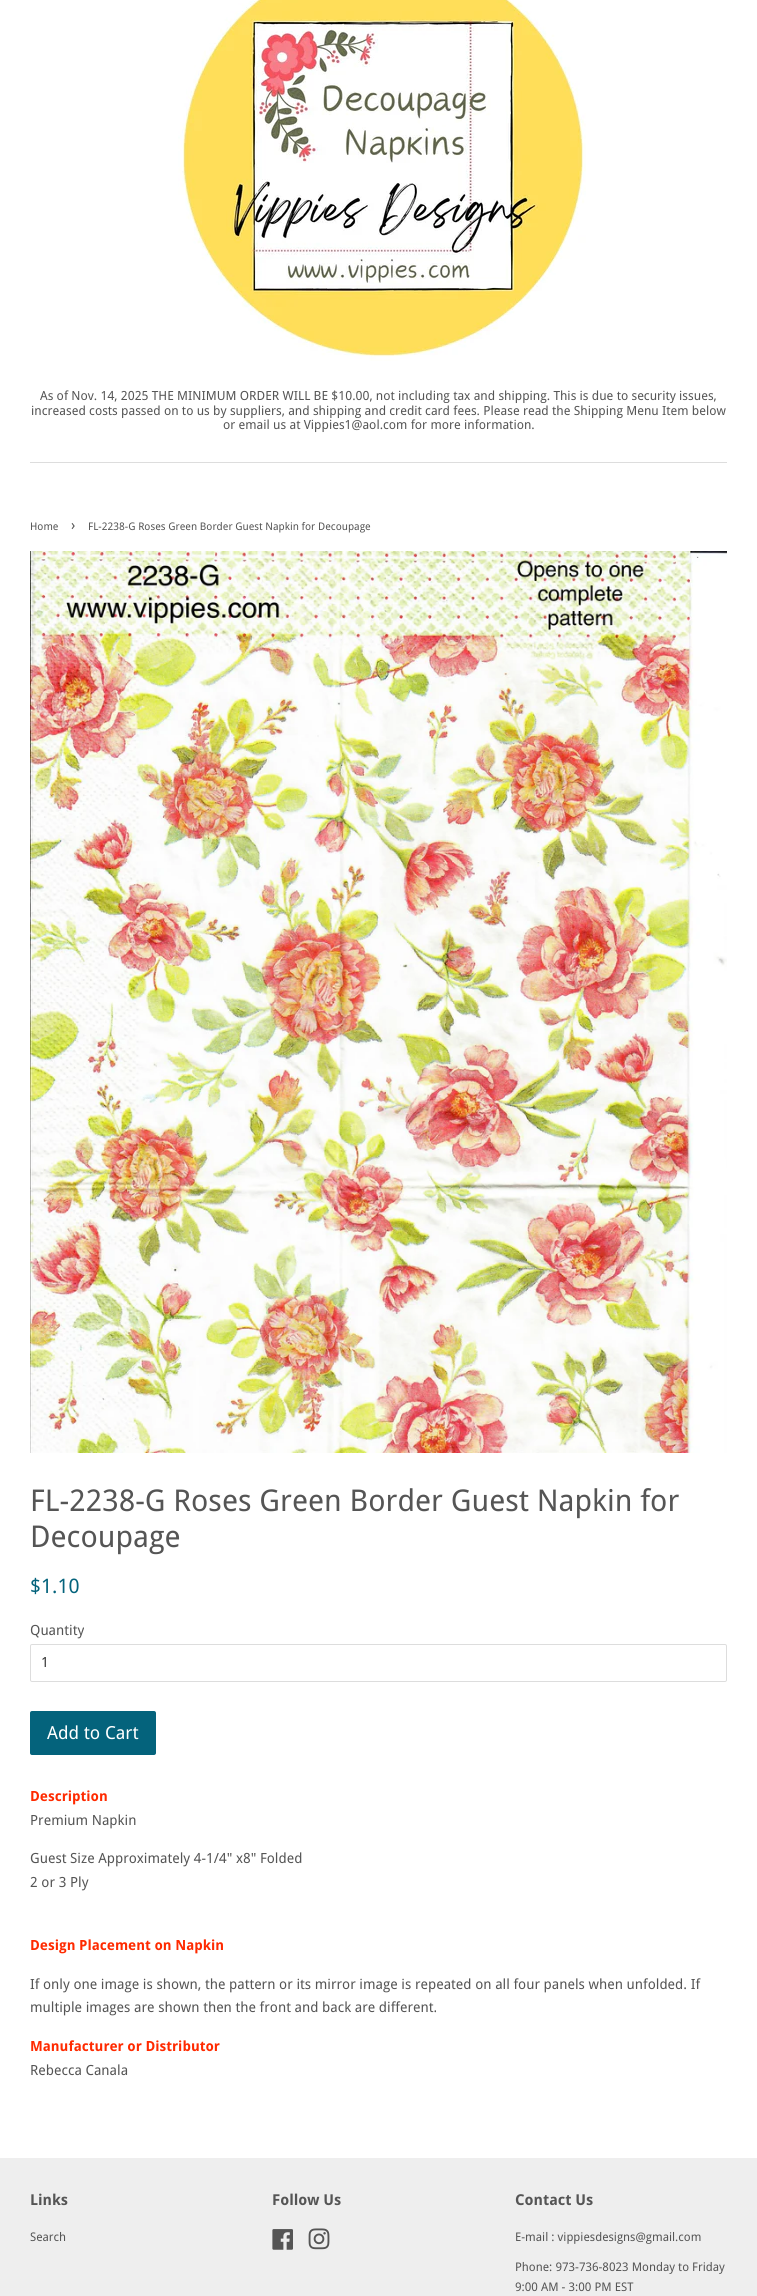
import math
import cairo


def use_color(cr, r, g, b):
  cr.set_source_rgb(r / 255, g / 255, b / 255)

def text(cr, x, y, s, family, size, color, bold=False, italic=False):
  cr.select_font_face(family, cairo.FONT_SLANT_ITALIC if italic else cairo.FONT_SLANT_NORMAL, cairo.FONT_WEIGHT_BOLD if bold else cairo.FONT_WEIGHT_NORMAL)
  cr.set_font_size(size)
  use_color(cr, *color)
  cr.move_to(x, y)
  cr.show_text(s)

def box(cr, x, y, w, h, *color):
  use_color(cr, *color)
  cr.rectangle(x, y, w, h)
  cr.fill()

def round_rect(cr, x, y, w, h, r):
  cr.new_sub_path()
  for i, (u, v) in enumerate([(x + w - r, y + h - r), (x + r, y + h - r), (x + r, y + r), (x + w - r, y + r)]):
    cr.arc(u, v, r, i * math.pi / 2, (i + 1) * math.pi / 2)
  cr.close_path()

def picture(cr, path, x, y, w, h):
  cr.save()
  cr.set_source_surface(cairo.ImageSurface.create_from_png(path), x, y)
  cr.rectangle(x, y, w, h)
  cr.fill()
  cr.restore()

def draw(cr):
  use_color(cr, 255, 255, 255)
  cr.paint()
  box(cr, 30, 462, 697, 1, 221, 221, 221)
  picture(cr, "img_01.png", 178, 0, 408, 361)
  picture(cr, "img_02.png", 30, 551, 697, 902)
  round_rect(cr, 30.5, 1644.5, 696, 37, 1.5)
  cr.set_line_width(1)
  cr.stroke()
  use_color(cr, 4, 99, 124)
  round_rect(cr, 30, 1711, 126, 44, 2)
  cr.fill()
  box(cr, 0, 2158, 757, 138, 238, 238, 238)
  picture(cr, "img_03.png", 272, 2229, 21, 21)
  picture(cr, "img_04.png", 308, 2228, 22, 22)
  text(cr, 40, 400, "As of Nov. 14, 2025 THE MINIMUM ORDER WILL BE $10.00, not including tax and shipping. This is due to security issues,", "Droid Sans", 12.6, (85, 85, 85))
  text(cr, 31, 415, "increased costs passed on to us by suppliers, and shipping and credit card fees. Please read the Shipping Menu Item below", "Droid Sans", 12.6, (85, 85, 85))
  text(cr, 223, 429, "or email us at Vippies1@aol.com for more information.", "Droid Sans", 12.6, (85, 85, 85))
  text(cr, 30, 530, "Home", "Droid Sans", 10.5, (85, 85, 85))
  text(cr, 71, 530, "›", "Droid Sans", 15, (85, 85, 85))
  text(cr, 88, 530, "FL-2238-G Roses Green Border Guest Napkin for Decoupage", "Droid Sans", 10.5, (85, 85, 85))
  text(cr, 30, 1511, "FL-2238-G Roses Green Border Guest Napkin for", "Droid Sans", 30, (85, 85, 85))
  text(cr, 30, 1547, "Decoupage", "Droid Sans", 30, (85, 85, 85))
  text(cr, 30, 1593, "$1.10", "Droid Sans", 20, (4, 99, 124))
  text(cr, 30, 1635, "Quantity", "Droid Sans", 14, (85, 85, 85))
  text(cr, 41, 1667, "1", "Droid Sans", 14, (51, 51, 51))
  text(cr, 47, 1739, "Add to Cart", "Droid Sans", 18, (255, 255, 255))
  text(cr, 30, 1801, "Description", "Droid Sans", 14, (255, 42, 0), bold=True)
  text(cr, 30, 1825, "Premium Napkin", "Droid Sans", 14, (85, 85, 85))
  text(cr, 30, 1863, "Guest Size Approximately 4-1/4\" x8\" Folded", "Droid Sans", 14, (85, 85, 85))
  text(cr, 30, 1887, "2 or 3 Ply", "Droid Sans", 14, (85, 85, 85))
  text(cr, 30, 1950, "Design Placement on Napkin", "Droid Sans", 14, (255, 42, 0), bold=True)
  text(cr, 30, 1989, "If only one image is shown, the pattern or its mirror image is repeated on all four panels when unfolded. If", "Droid Sans", 14, (85, 85, 85))
  text(cr, 30, 2012, "multiple images are shown then the front and back are different.", "Droid Sans", 14, (85, 85, 85))
  text(cr, 30, 2051, "Manufacturer or Distributor", "Droid Sans", 14, (255, 42, 0), bold=True)
  text(cr, 30, 2075, "Rebecca Canala", "Droid Sans", 14, (85, 85, 85))
  text(cr, 30, 2205, "Links", "Droid Sans", 15, (85, 85, 85), bold=True)
  text(cr, 30, 2241, "Search", "Droid Sans", 11.9, (85, 85, 85))
  text(cr, 272, 2205, "Follow Us", "Droid Sans", 15, (85, 85, 85), bold=True)
  text(cr, 515, 2205, "Contact Us", "Droid Sans", 15, (85, 85, 85), bold=True)
  text(cr, 515, 2241, "E-mail : vippiesdesigns@gmail.com", "Droid Sans", 11.9, (85, 85, 85))
  text(cr, 515, 2271, "Phone: 973-736-8023 Monday to Friday", "Droid Sans", 11.9, (85, 85, 85))
  text(cr, 515, 2291, "9:00 AM - 3:00 PM EST", "Droid Sans", 11.9, (85, 85, 85))


surface = cairo.ImageSurface(cairo.FORMAT_RGB24, 757, 2296)
cr = cairo.Context(surface)
options = cairo.FontOptions()
options.set_hint_metrics(cairo.HINT_METRICS_OFF)
options.set_hint_style(cairo.HINT_STYLE_NONE)
cr.set_font_options(options)
cr.set_miter_limit(4)
draw(cr)
surface.write_to_png("out.png")
